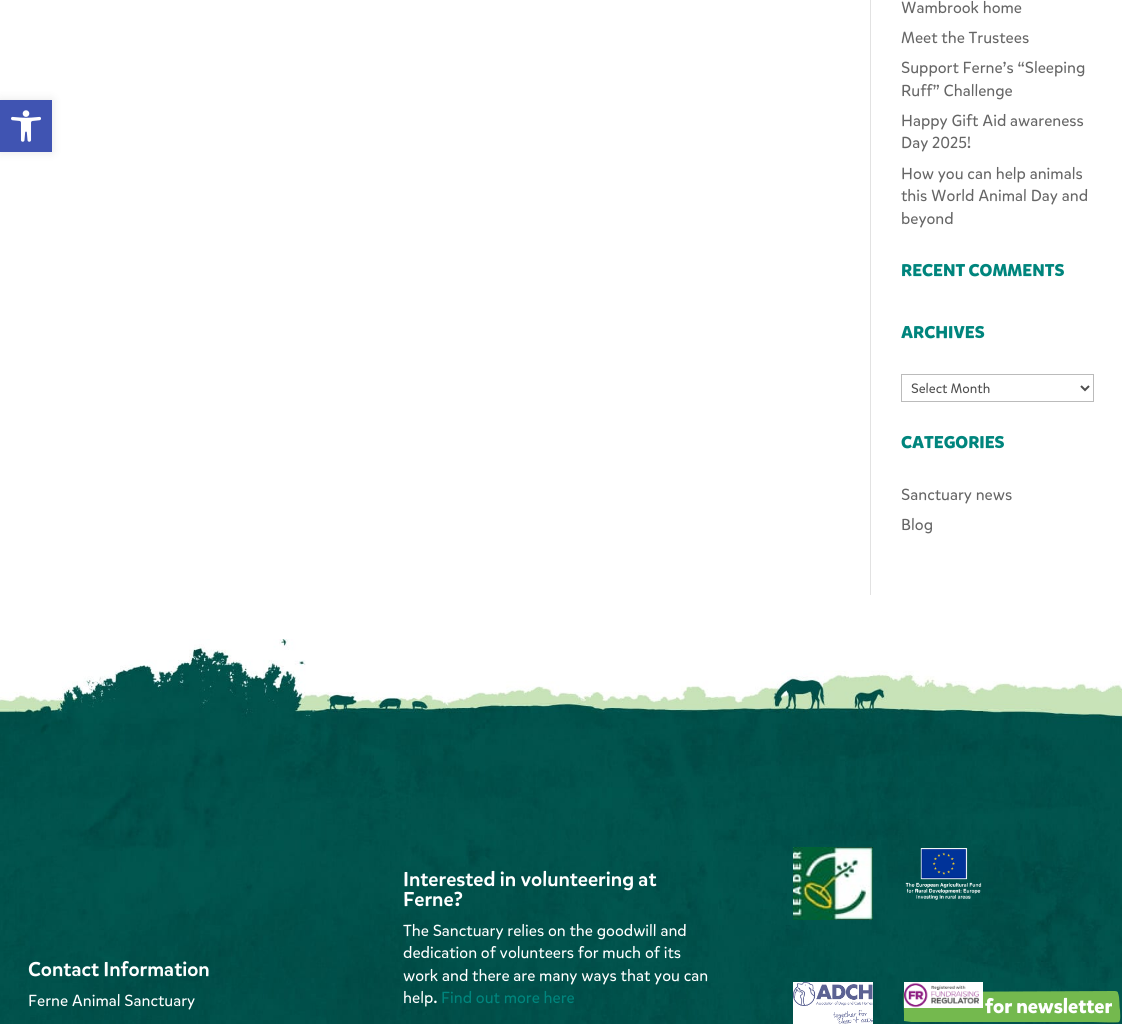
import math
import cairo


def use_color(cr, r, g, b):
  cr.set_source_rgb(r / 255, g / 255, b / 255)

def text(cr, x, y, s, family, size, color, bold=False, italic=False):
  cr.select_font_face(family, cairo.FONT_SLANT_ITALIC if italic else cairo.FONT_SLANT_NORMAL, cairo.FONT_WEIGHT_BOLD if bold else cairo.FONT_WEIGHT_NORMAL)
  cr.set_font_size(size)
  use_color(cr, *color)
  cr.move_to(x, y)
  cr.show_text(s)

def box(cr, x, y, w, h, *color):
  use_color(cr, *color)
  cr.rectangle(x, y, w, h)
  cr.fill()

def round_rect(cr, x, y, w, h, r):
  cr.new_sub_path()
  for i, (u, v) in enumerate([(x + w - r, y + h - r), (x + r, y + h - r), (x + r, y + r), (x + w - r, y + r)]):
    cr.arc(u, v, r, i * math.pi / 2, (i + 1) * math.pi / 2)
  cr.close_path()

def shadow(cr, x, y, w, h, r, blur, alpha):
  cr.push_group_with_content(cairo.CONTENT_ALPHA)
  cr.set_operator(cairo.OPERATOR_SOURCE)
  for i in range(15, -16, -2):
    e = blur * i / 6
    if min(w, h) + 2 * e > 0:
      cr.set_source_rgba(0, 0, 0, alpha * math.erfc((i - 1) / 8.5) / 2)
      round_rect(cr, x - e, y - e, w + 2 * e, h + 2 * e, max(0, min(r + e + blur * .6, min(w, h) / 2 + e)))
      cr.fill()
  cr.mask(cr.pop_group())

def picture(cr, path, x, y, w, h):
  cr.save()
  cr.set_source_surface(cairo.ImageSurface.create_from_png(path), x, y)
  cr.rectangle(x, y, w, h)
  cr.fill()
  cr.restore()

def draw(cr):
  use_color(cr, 255, 255, 255)
  cr.paint()
  box(cr, 870, 0, 1, 595, 226, 226, 226)
  cr.rectangle(901.5, 374.5, 192, 27)
  use_color(cr, 187, 187, 187)
  cr.set_line_width(1)
  cr.stroke()
  cr.new_path()
  cr.move_to(1081, 386)
  cr.line_to(1085, 390)
  cr.line_to(1089, 386)
  use_color(cr, 78, 78, 78)
  cr.set_line_width(2)
  cr.stroke()
  picture(cr, "img_01.png", 0, 639, 1122, 385)
  picture(cr, "img_02.png", 793, 847, 80, 73)
  picture(cr, "img_03.png", 905, 848, 77, 52)
  picture(cr, "img_04.png", 793, 982, 80, 42)
  use_color(cr, 116, 185, 78)
  cr.new_path()
  cr.move_to(904, 1021)
  cr.line_to(904, 1015)
  cr.curve_to(904, 1012, 903, 992, 904, 992)
  cr.line_to(1114, 991)
  cr.curve_to(1115, 991, 1118, 991, 1118, 993)
  cr.curve_to(1120, 998, 1119, 1005, 1120, 1010)
  cr.curve_to(1120, 1013, 1121, 1020, 1119, 1022)
  cr.curve_to(1118, 1023, 1097, 1022, 1093, 1022)
  cr.line_to(975, 1022)
  cr.line_to(961, 1022)
  cr.line_to(911, 1022)
  cr.close_path()
  cr.fill()
  picture(cr, "img_05.png", 904, 982, 79, 26)
  use_color(cr, 0, 0, 0)
  shadow(cr, 0, 100, 52, 52, 0, 5, 0.1)
  box(cr, 0, 100, 52, 52, 64, 84, 178)
  picture(cr, "img_06.png", 11, 110, 30, 32)
  text(cr, 901, 13, "Wambrook home", "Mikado", 16, (102, 102, 102))
  text(cr, 901, 43, "Meet the Trustees", "Mikado", 16, (102, 102, 102))
  text(cr, 901, 73, "Support Ferne’s “Sleeping", "Mikado", 16, (102, 102, 102))
  text(cr, 901, 96, "Ruff” Challenge", "Mikado", 16, (102, 102, 102))
  text(cr, 901, 126, "Happy Gift Aid awareness", "Mikado", 16, (102, 102, 102))
  text(cr, 901, 148, "Day 2025!", "Mikado", 16, (102, 102, 102))
  text(cr, 901, 179, "How you can help animals", "Mikado", 16, (102, 102, 102))
  text(cr, 901, 201, "this World Animal Day and", "Mikado", 16, (102, 102, 102))
  text(cr, 901, 224, "beyond", "Mikado", 16, (102, 102, 102))
  text(cr, 901, 276, "RECENT COMMENTS", "Mikado", 17, (0, 133, 125), bold=True)
  text(cr, 901, 338, "ARCHIVES", "Mikado", 17, (0, 133, 125), bold=True)
  text(cr, 911, 393, "Select Month", "Mikado", 13.5, (78, 78, 78))
  text(cr, 901, 448, "CATEGORIES", "Mikado", 17, (0, 133, 125), bold=True)
  text(cr, 901, 500, "Sanctuary news", "Mikado", 16, (102, 102, 102))
  text(cr, 901, 530, "Blog", "Mikado", 16, (102, 102, 102))
  text(cr, 28, 976, "Contact Information", "Mikado Medium", 20, (255, 255, 255))
  text(cr, 28, 1006, "Ferne Animal Sanctuary", "Mikado", 16, (255, 255, 255))
  text(cr, 403, 886, "Interested in volunteering at", "Mikado Medium", 20, (255, 255, 255))
  text(cr, 403, 906, "Ferne?", "Mikado Medium", 20, (255, 255, 255))
  text(cr, 403, 936, "The Sanctuary relies on the goodwill and", "Mikado", 16, (255, 255, 255))
  text(cr, 403, 958, "dedication of volunteers for much of its", "Mikado", 16, (255, 255, 255))
  text(cr, 403, 981, "work and there are many ways that you can", "Mikado", 16, (255, 255, 255))
  text(cr, 403, 1003, "help.", "Mikado", 16, (255, 255, 255))
  text(cr, 441, 1003, "Find out more here", "Mikado", 16, (0, 133, 125))
  text(cr, 985, 1013, "for newsletter", "Mikado", 20, (255, 255, 255), bold=True)


surface = cairo.ImageSurface(cairo.FORMAT_RGB24, 1122, 1024)
cr = cairo.Context(surface)
options = cairo.FontOptions()
options.set_hint_metrics(cairo.HINT_METRICS_OFF)
options.set_hint_style(cairo.HINT_STYLE_NONE)
cr.set_font_options(options)
cr.set_miter_limit(4)
draw(cr)
surface.write_to_png("out.png")
